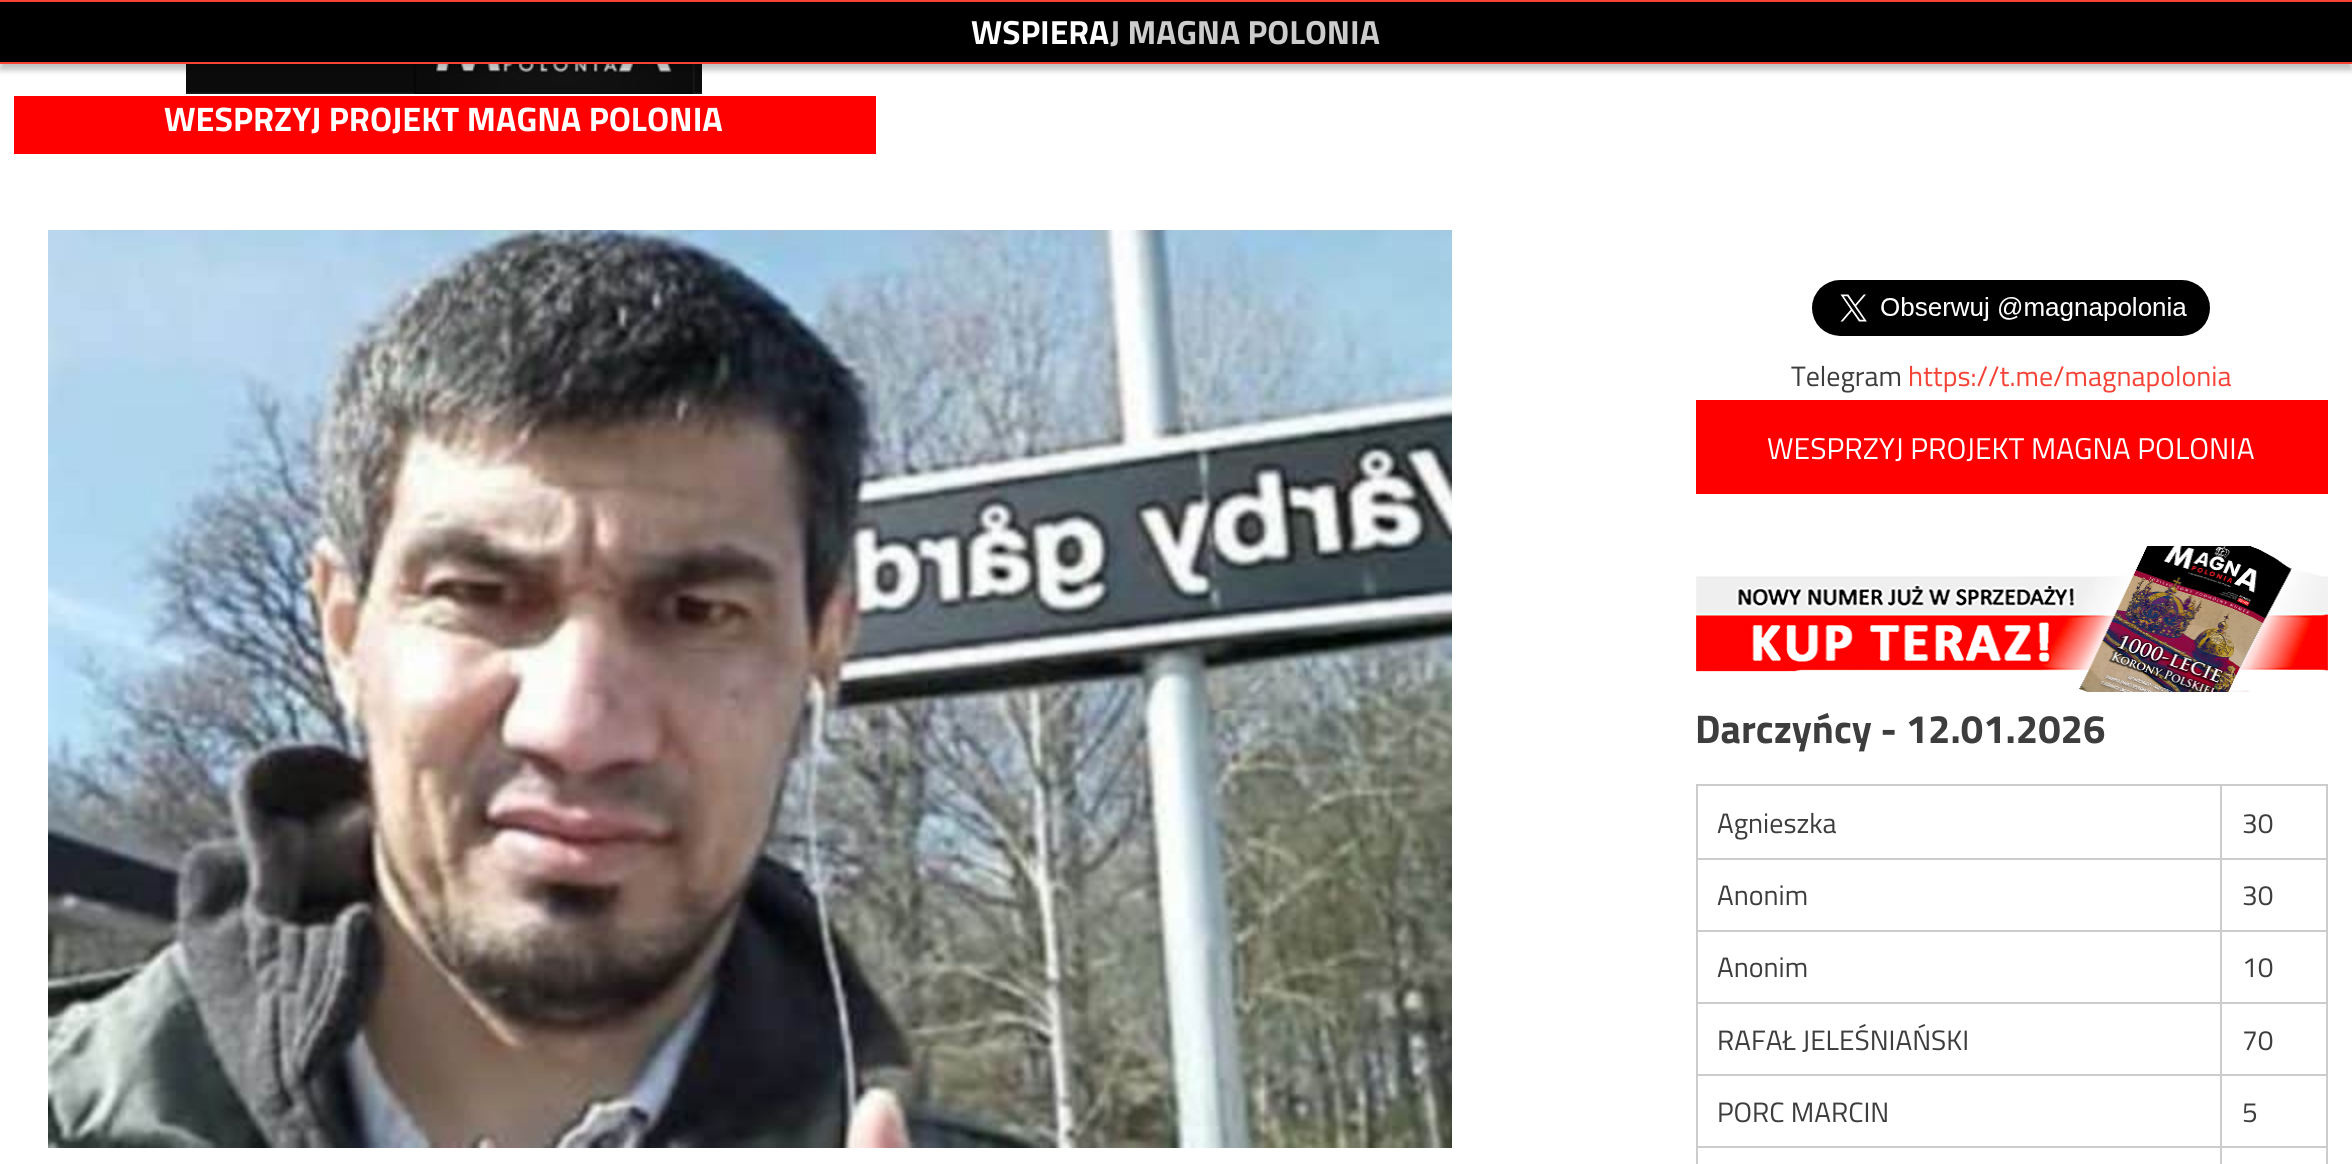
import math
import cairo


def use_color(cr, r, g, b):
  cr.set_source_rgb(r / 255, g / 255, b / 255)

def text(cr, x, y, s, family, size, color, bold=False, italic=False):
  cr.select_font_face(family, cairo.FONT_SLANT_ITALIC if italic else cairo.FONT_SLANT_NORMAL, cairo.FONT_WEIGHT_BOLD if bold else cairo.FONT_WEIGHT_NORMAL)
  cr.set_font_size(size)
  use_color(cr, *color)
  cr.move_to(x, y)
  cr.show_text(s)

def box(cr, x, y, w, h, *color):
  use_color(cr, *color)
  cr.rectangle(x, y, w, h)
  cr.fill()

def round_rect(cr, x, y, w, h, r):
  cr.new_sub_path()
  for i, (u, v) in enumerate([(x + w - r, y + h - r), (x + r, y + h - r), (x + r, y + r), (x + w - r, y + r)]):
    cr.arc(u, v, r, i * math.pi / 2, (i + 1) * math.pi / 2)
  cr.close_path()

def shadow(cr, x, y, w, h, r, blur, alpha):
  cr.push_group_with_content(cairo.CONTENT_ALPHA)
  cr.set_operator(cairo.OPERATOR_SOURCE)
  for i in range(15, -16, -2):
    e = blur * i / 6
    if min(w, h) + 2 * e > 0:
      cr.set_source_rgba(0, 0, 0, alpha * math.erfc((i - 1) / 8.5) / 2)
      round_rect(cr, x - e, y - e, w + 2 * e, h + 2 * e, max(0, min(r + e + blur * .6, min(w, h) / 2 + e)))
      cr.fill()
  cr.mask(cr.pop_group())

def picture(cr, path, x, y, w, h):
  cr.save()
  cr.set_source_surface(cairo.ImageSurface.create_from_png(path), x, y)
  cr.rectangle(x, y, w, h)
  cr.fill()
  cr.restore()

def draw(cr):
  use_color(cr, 255, 255, 255)
  cr.paint()
  picture(cr, "img_01.png", 186, 64, 516, 30)
  use_color(cr, 0, 0, 0)
  shadow(cr, 0, 6, 2352, 64, 0, 3, 0.25)
  box(cr, 0, 2, 2352, 60, 0, 0, 0)
  box(cr, 0, 0, 2352, 2, 245, 67, 55)
  box(cr, 0, 62, 2352, 2, 245, 67, 55)
  box(cr, 14, 96, 862, 58, 255, 0, 0)
  picture(cr, "img_02.png", 48, 230, 1404, 918)
  picture(cr, "img_03.png", 1812, 280, 398, 56)
  box(cr, 1696, 400, 632, 94, 255, 0, 0)
  picture(cr, "img_04.png", 1696, 546, 632, 146)
  box(cr, 2220, 784, 108, 2, 204, 204, 204)
  box(cr, 2220, 858, 108, 2, 204, 204, 204)
  box(cr, 2220, 930, 108, 2, 204, 204, 204)
  box(cr, 2220, 1002, 108, 2, 204, 204, 204)
  box(cr, 2220, 1074, 108, 2, 204, 204, 204)
  box(cr, 2220, 1146, 108, 2, 204, 204, 204)
  box(cr, 2220, 1146, 2, 18, 204, 204, 204)
  box(cr, 1696, 1146, 526, 2, 204, 204, 204)
  box(cr, 2220, 1074, 2, 74, 204, 204, 204)
  box(cr, 1696, 1074, 526, 2, 204, 204, 204)
  box(cr, 2220, 1002, 2, 74, 204, 204, 204)
  box(cr, 1696, 1002, 526, 2, 204, 204, 204)
  box(cr, 2220, 930, 2, 74, 204, 204, 204)
  box(cr, 1696, 930, 526, 2, 204, 204, 204)
  box(cr, 2220, 858, 2, 74, 204, 204, 204)
  box(cr, 1696, 858, 526, 2, 204, 204, 204)
  box(cr, 2220, 784, 2, 76, 204, 204, 204)
  box(cr, 1696, 784, 526, 2, 204, 204, 204)
  box(cr, 1696, 1146, 2, 18, 204, 204, 204)
  box(cr, 1696, 1074, 2, 74, 204, 204, 204)
  box(cr, 1696, 1002, 2, 74, 204, 204, 204)
  box(cr, 1696, 930, 2, 74, 204, 204, 204)
  box(cr, 1696, 858, 2, 74, 204, 204, 204)
  box(cr, 1696, 784, 2, 76, 204, 204, 204)
  box(cr, 2326, 1146, 2, 18, 204, 204, 204)
  box(cr, 2326, 1074, 2, 74, 204, 204, 204)
  box(cr, 2326, 1002, 2, 74, 204, 204, 204)
  box(cr, 2326, 930, 2, 74, 204, 204, 204)
  box(cr, 2326, 858, 2, 74, 204, 204, 204)
  box(cr, 2326, 784, 2, 76, 204, 204, 204)
  text(cr, 971, 44, "WSPIERA", "Titillium Web", 33.5, (255, 255, 255), bold=True)
  text(cr, 1110, 44, "J MAGNA POLONIA", "Titillium Web", 33.5, (204, 204, 204), bold=True)
  text(cr, 164, 131, "WESPRZYJ PROJEKT MAGNA POLONIA", "Titillium Web", 34, (255, 255, 255), bold=True)
  text(cr, 1791, 386, "Telegram", "Titillium Web", 28, (61, 61, 61))
  text(cr, 1908, 386, "https://t.me/magnapolonia", "Titillium Web", 28, (245, 67, 55))
  text(cr, 1767, 459, "WESPRZYJ PROJEKT MAGNA POLONIA", "Titillium Web", 30, (255, 255, 255))
  text(cr, 1695, 743, "Darczyńcy - 12.01.2026", "Titillium Web", 40, (61, 61, 61), bold=True)
  text(cr, 1717, 833, "Agnieszka", "Titillium Web", 28, (61, 61, 61))
  text(cr, 2242, 833, "30", "Titillium Web", 28, (61, 61, 61))
  text(cr, 1717, 905, "Anonim", "Titillium Web", 28, (61, 61, 61))
  text(cr, 2242, 905, "30", "Titillium Web", 28, (61, 61, 61))
  text(cr, 1717, 977, "Anonim", "Titillium Web", 28, (61, 61, 61))
  text(cr, 2242, 977, "10", "Titillium Web", 28, (61, 61, 61))
  text(cr, 1717, 1050, "RAFAŁ JELEŚNIAŃSKI", "Titillium Web", 28, (61, 61, 61))
  text(cr, 2242, 1050, "70", "Titillium Web", 28, (61, 61, 61))
  text(cr, 1717, 1122, "PORC MARCIN", "Titillium Web", 28, (61, 61, 61))
  text(cr, 2242, 1122, "5", "Titillium Web", 28, (61, 61, 61))


surface = cairo.ImageSurface(cairo.FORMAT_RGB24, 2352, 1164)
cr = cairo.Context(surface)
options = cairo.FontOptions()
options.set_hint_metrics(cairo.HINT_METRICS_OFF)
options.set_hint_style(cairo.HINT_STYLE_NONE)
cr.set_font_options(options)
cr.set_miter_limit(4)
draw(cr)
surface.write_to_png("out.png")
